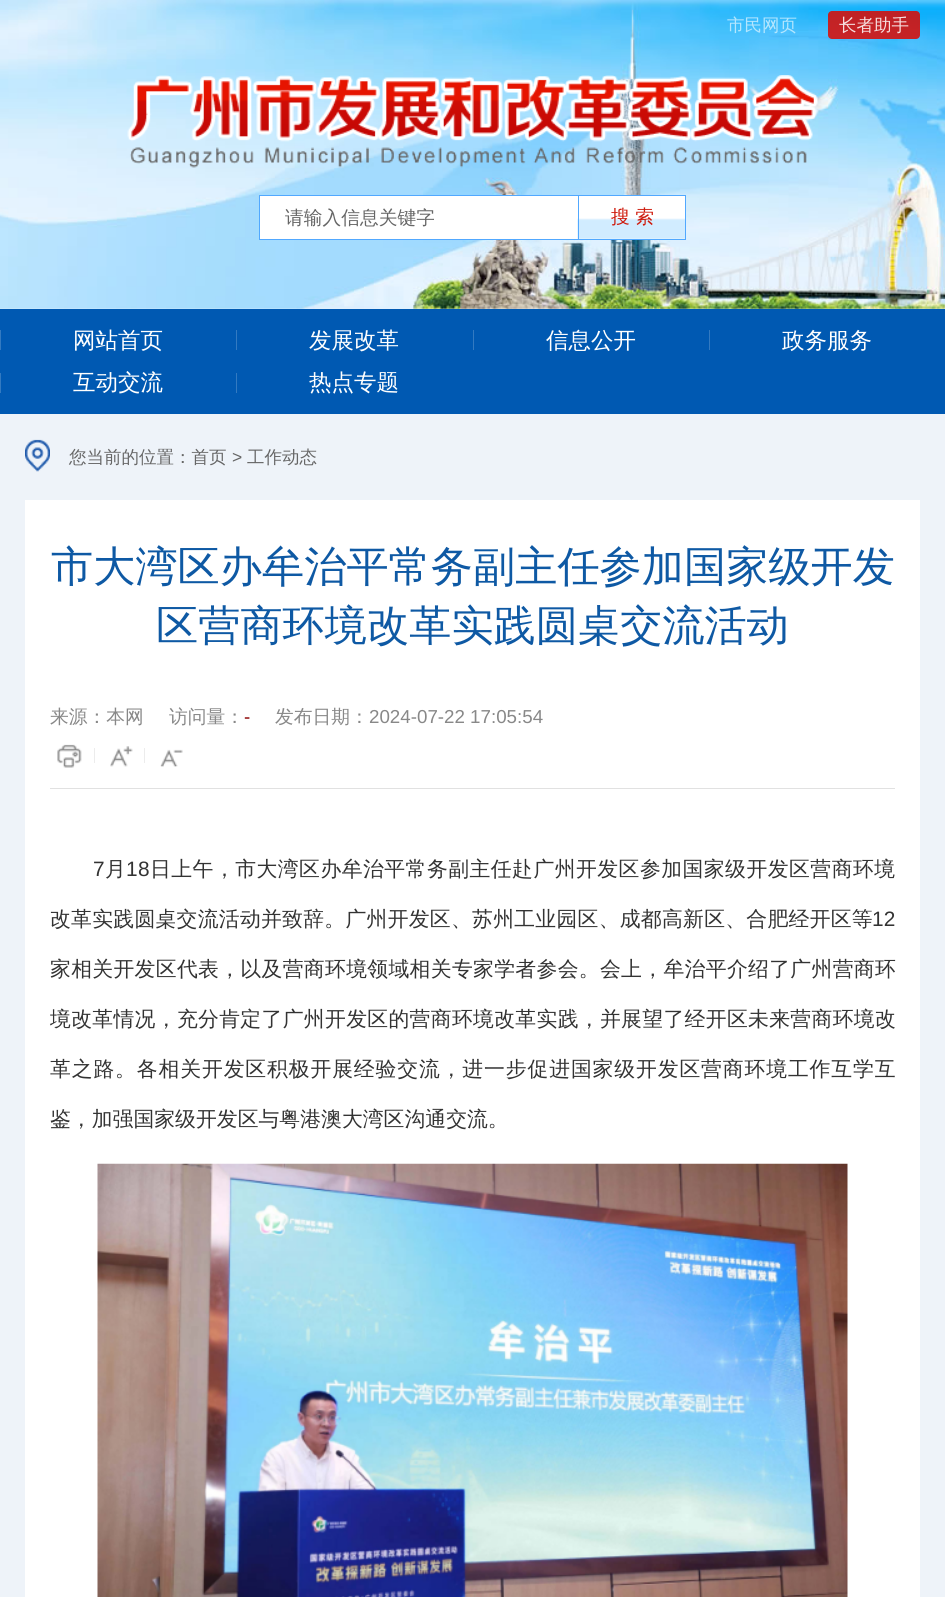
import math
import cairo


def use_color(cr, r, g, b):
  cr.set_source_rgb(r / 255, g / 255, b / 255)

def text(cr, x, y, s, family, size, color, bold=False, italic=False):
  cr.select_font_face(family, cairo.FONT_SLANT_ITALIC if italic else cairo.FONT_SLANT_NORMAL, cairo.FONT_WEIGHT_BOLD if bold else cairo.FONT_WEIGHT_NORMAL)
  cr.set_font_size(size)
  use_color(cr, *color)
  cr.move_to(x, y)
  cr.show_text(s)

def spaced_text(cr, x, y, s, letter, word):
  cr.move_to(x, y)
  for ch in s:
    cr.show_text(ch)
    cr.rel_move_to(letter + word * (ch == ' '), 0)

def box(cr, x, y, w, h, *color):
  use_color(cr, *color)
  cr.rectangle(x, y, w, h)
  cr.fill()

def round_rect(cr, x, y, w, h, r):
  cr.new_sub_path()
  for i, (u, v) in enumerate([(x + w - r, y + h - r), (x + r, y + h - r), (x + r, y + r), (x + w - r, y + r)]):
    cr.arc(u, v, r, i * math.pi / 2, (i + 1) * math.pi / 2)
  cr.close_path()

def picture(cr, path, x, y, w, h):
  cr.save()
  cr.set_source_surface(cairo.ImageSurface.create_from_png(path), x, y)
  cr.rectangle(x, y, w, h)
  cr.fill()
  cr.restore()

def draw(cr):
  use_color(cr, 238, 243, 249)
  cr.paint()
  picture(cr, "img_01.png", 0, 0, 945, 309)
  cr.set_source_rgba(0.867, 0.035, 0, 0.85)
  round_rect(cr, 828, 11, 92, 28, 4)
  cr.fill()
  picture(cr, "img_02.png", 127, 75, 691, 93)
  use_color(cr, 255, 255, 255)
  cr.rectangle(259.5, 195.5, 426, 44)
  cr.fill_preserve()
  use_color(cr, 81, 168, 255)
  cr.set_line_width(1)
  cr.stroke()
  picture(cr, "img_03.png", 577, 218, 108, 21)
  box(cr, 578, 196, 1, 43, 81, 168, 255)
  box(cr, 0, 309, 945, 105, 0, 89, 178)
  box(cr, 0, 330, 1, 20, 51, 122, 193)
  box(cr, 236, 330, 1, 20, 51, 122, 193)
  box(cr, 473, 330, 1, 20, 51, 122, 193)
  box(cr, 709, 330, 1, 20, 51, 122, 193)
  box(cr, 0, 373, 1, 20, 51, 122, 193)
  box(cr, 236, 373, 1, 20, 51, 122, 193)
  picture(cr, "img_04.png", 25, 439, 25, 33)
  box(cr, 25, 500, 895, 1097, 255, 255, 255)
  box(cr, 50, 788, 845, 1, 225, 225, 225)
  picture(cr, "img_05.png", 57, 744, 25, 24)
  box(cr, 94, 748, 1, 15, 236, 236, 236)
  picture(cr, "img_06.png", 110, 746, 23, 21)
  box(cr, 144, 748, 1, 15, 236, 236, 236)
  picture(cr, "img_07.png", 160, 749, 23, 18)
  picture(cr, "img_08.png", 97, 1163, 751, 434)
  text(cr, 727, 31, "市民网页", "WenQuanYi Zen Hei Medium", 17.5, (180, 230, 254))
  text(cr, 839, 31, "长者助手", "WenQuanYi Zen Hei Medium", 17.5, (246, 222, 222))
  text(cr, 285, 224, "请输入信息关键字", "WenQuanYi Zen Hei Medium", 18.75, (102, 102, 102))
  text(cr, 611, 223, "搜 索", "WenQuanYi Zen Hei Medium", 18.75, (206, 26, 12))
  text(cr, 73, 348, "网站首页", "WenQuanYi Zen Hei Medium", 22.5, (255, 255, 255))
  text(cr, 309, 348, "发展改革", "WenQuanYi Zen Hei Medium", 22.5, (255, 255, 255))
  text(cr, 546, 348, "信息公开", "WenQuanYi Zen Hei Medium", 22.5, (255, 255, 255))
  text(cr, 782, 348, "政务服务", "WenQuanYi Zen Hei Medium", 22.5, (255, 255, 255))
  text(cr, 73, 390, "互动交流", "WenQuanYi Zen Hei Medium", 22.5, (255, 255, 255))
  text(cr, 309, 390, "热点专题", "WenQuanYi Zen Hei Medium", 22.5, (255, 255, 255))
  text(cr, 69, 463, "您当前的位置：首页", "WenQuanYi Zen Hei Medium", 17.5, (102, 102, 102))
  text(cr, 232, 463, ">", "Liberation Sans", 17.5, (102, 102, 102))
  text(cr, 247, 463, "工作动态", "WenQuanYi Zen Hei Medium", 17.5, (102, 102, 102))
  text(cr, 51, 581, "市大湾区办牟治平常务副主任参加国家级开发", "WenQuanYi Zen Hei Medium", 42.2, (14, 89, 164))
  text(cr, 156, 640, "区营商环境改革实践圆桌交流活动", "WenQuanYi Zen Hei Medium", 42.2, (14, 89, 164))
  text(cr, 50, 723, "来源：本网", "WenQuanYi Zen Hei Medium", 18.75, (136, 136, 136))
  text(cr, 169, 723, "访问量：", "WenQuanYi Zen Hei Medium", 18.75, (136, 136, 136))
  text(cr, 244, 723, "-", "Liberation Sans", 18.75, (141, 7, 7))
  text(cr, 275, 723, "发布日期：", "WenQuanYi Zen Hei Medium", 18.75, (136, 136, 136))
  text(cr, 369, 723, "2024-07-22 17:05:54", "Liberation Sans", 18.75, (136, 136, 136))
  cr.set_font_size(20.85)
  use_color(cr, 51, 51, 51)
  spaced_text(cr, 93, 876, "7", 0.45, 0)
  cr.select_font_face("WenQuanYi Zen Hei Medium")
  spaced_text(cr, 105, 876, "月", 0.45, 0)
  cr.select_font_face("Liberation Sans")
  spaced_text(cr, 126, 876, "18", 0.45, 0)
  cr.select_font_face("WenQuanYi Zen Hei Medium")
  spaced_text(cr, 150, 876, "日上午，市大湾区办牟治平常务副主任赴广州开发区参加国家级开发区营商环境", 0.45, 0)
  spaced_text(cr, 50, 926, "改革实践圆桌交流活动并致辞。广州开发区、苏州工业园区、成都高新区、合肥经开区等", 0.25, 0)
  cr.select_font_face("Liberation Sans")
  spaced_text(cr, 872, 926, "12", 0.25, 0)
  cr.select_font_face("WenQuanYi Zen Hei Medium")
  spaced_text(cr, 50, 976, "家相关开发区代表，以及营商环境领域相关专家学者参会。会上，牟治平介绍了广州营商环", 0.3, 0)
  spaced_text(cr, 50, 1026, "境改革情况，充分肯定了广州开发区的营商环境改革实践，并展望了经开区未来营商环境改", 0.3, 0)
  spaced_text(cr, 50, 1076, "革之路。各相关开发区积极开展经验交流，进一步促进国家级开发区营商环境工作互学互", 0.85, 0)
  text(cr, 50, 1126, "鉴，加强国家级开发区与粤港澳大湾区沟通交流。", "WenQuanYi Zen Hei Medium", 20.85, (51, 51, 51))


surface = cairo.ImageSurface(cairo.FORMAT_RGB24, 945, 1597)
cr = cairo.Context(surface)
options = cairo.FontOptions()
options.set_hint_metrics(cairo.HINT_METRICS_OFF)
options.set_hint_style(cairo.HINT_STYLE_NONE)
cr.set_font_options(options)
cr.set_miter_limit(4)
draw(cr)
surface.write_to_png("out.png")
